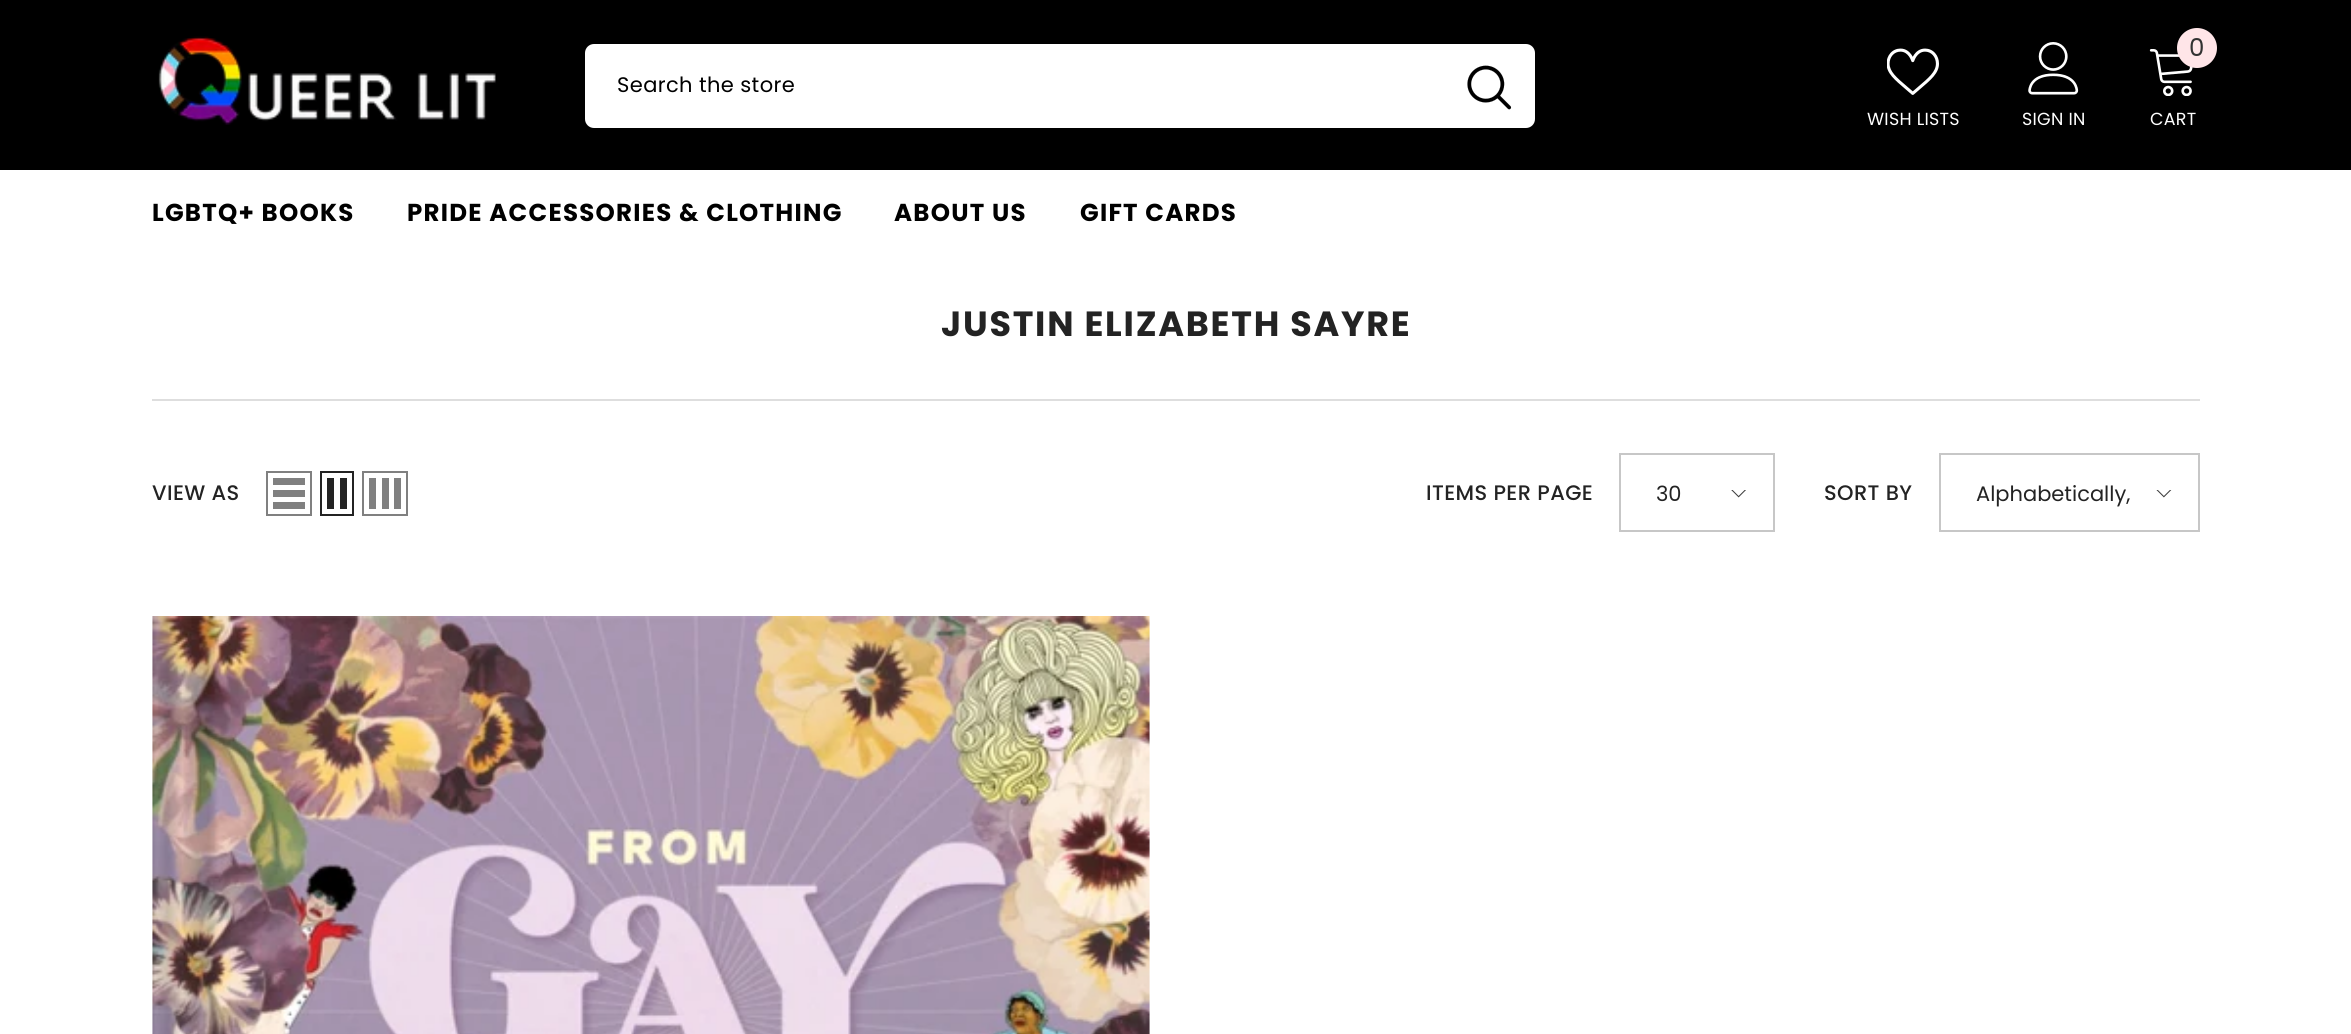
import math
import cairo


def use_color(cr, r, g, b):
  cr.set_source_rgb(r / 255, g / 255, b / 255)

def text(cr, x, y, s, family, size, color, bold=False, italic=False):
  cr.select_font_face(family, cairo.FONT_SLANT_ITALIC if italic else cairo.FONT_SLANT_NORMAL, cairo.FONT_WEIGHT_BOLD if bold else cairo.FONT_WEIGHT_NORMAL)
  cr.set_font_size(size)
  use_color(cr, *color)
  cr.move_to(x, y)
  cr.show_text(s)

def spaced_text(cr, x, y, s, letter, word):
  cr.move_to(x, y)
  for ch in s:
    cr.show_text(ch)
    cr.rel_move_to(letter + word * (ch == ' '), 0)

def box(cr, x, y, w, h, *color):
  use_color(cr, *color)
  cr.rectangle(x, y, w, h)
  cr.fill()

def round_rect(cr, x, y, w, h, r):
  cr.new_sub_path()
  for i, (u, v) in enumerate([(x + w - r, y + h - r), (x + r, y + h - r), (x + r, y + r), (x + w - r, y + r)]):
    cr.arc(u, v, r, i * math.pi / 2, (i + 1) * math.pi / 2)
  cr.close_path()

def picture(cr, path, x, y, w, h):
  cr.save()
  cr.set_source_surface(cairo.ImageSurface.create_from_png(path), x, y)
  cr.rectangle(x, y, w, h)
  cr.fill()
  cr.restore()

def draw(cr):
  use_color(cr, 255, 255, 255)
  cr.paint()
  box(cr, 0, 0, 2351, 170, 0, 0, 0)
  picture(cr, "img_01.png", 158, 36, 338, 89)
  use_color(cr, 255, 255, 255)
  round_rect(cr, 585, 44, 950, 84, 9)
  cr.fill()
  picture(cr, "img_02.png", 1467, 65, 45, 45)
  picture(cr, "img_03.png", 1887, 48, 52, 47)
  picture(cr, "img_04.png", 2028, 42, 51, 53)
  picture(cr, "img_05.png", 2149, 49, 44, 47)
  use_color(cr, 255, 229, 232)
  cr.arc(2197, 48, 20, 0, 2 * math.pi)
  cr.fill()
  box(cr, 152, 399, 2048, 2, 222, 222, 222)
  cr.rectangle(267, 472, 44, 43)
  use_color(cr, 128, 128, 128)
  cr.stroke()
  box(cr, 273, 502, 32, 7, 128, 128, 128)
  box(cr, 273, 490, 32, 7, 128, 128, 128)
  box(cr, 273, 478, 32, 7, 128, 128, 128)
  cr.rectangle(321, 472, 32, 43)
  use_color(cr, 35, 35, 35)
  cr.stroke()
  box(cr, 340, 478, 7, 31, 35, 35, 35)
  box(cr, 327, 478, 7, 31, 35, 35, 35)
  cr.rectangle(363, 472, 44, 43)
  use_color(cr, 128, 128, 128)
  cr.stroke()
  box(cr, 394, 478, 7, 31, 128, 128, 128)
  box(cr, 382, 478, 7, 31, 128, 128, 128)
  box(cr, 369, 478, 7, 31, 128, 128, 128)
  cr.rectangle(1620, 454, 154, 77)
  use_color(cr, 199, 199, 199)
  cr.stroke()
  picture(cr, "img_06.png", 1731, 490, 15, 8)
  cr.rectangle(1940, 454, 259, 77)
  cr.stroke()
  picture(cr, "img_07.png", 2156, 490, 16, 8)
  picture(cr, "img_08.png", 152, 616, 998, 418)
  cr.select_font_face("Poppins")
  cr.set_font_size(21)
  use_color(cr, 0, 0, 0)
  spaced_text(cr, 617, 92, "Search the store", 0.4, 0)
  cr.set_font_size(17.5)
  use_color(cr, 255, 255, 255)
  spaced_text(cr, 1867, 125, "WISH LISTS", 0.25, 0)
  spaced_text(cr, 2022, 125, "SIGN IN", 0.25, 0)
  text(cr, 2189, 56, "0", "Poppins", 24.5, (50, 50, 50))
  cr.set_font_size(17.5)
  use_color(cr, 255, 255, 255)
  spaced_text(cr, 2150, 125, "CART", 0.25, 0)
  cr.select_font_face("Poppins", cairo.FONT_SLANT_NORMAL, cairo.FONT_WEIGHT_BOLD)
  cr.set_font_size(24.5)
  use_color(cr, 0, 0, 0)
  spaced_text(cr, 152, 221, "LGBTQ+ BOOKS", 1.25, 0)
  spaced_text(cr, 407, 221, "PRIDE ACCESSORIES & CLOTHING", 1.25, 0)
  spaced_text(cr, 894, 221, "ABOUT US", 1.25, 0)
  spaced_text(cr, 1080, 221, "GIFT CARDS", 1.25, 0)
  cr.set_font_size(35)
  use_color(cr, 35, 35, 35)
  spaced_text(cr, 941, 336, "JUSTIN ELIZABETH SAYRE", 1.75, 0)
  cr.select_font_face("Poppins Medium")
  cr.set_font_size(21)
  spaced_text(cr, 152, 500, "VIEW AS", 0.4, 0)
  spaced_text(cr, 1426, 500, "ITEMS PER PAGE", 0.4, 0)
  text(cr, 1656, 501, "30", "Poppins", 21, (35, 35, 35))
  cr.select_font_face("Poppins Medium")
  spaced_text(cr, 1824, 500, "SORT BY", 0.4, 0)
  text(cr, 1976, 501, "Alphabetically,", "Poppins", 21, (35, 35, 35))


surface = cairo.ImageSurface(cairo.FORMAT_RGB24, 2351, 1034)
cr = cairo.Context(surface)
options = cairo.FontOptions()
options.set_hint_metrics(cairo.HINT_METRICS_OFF)
options.set_hint_style(cairo.HINT_STYLE_NONE)
cr.set_font_options(options)
cr.set_miter_limit(4)
draw(cr)
surface.write_to_png("out.png")
